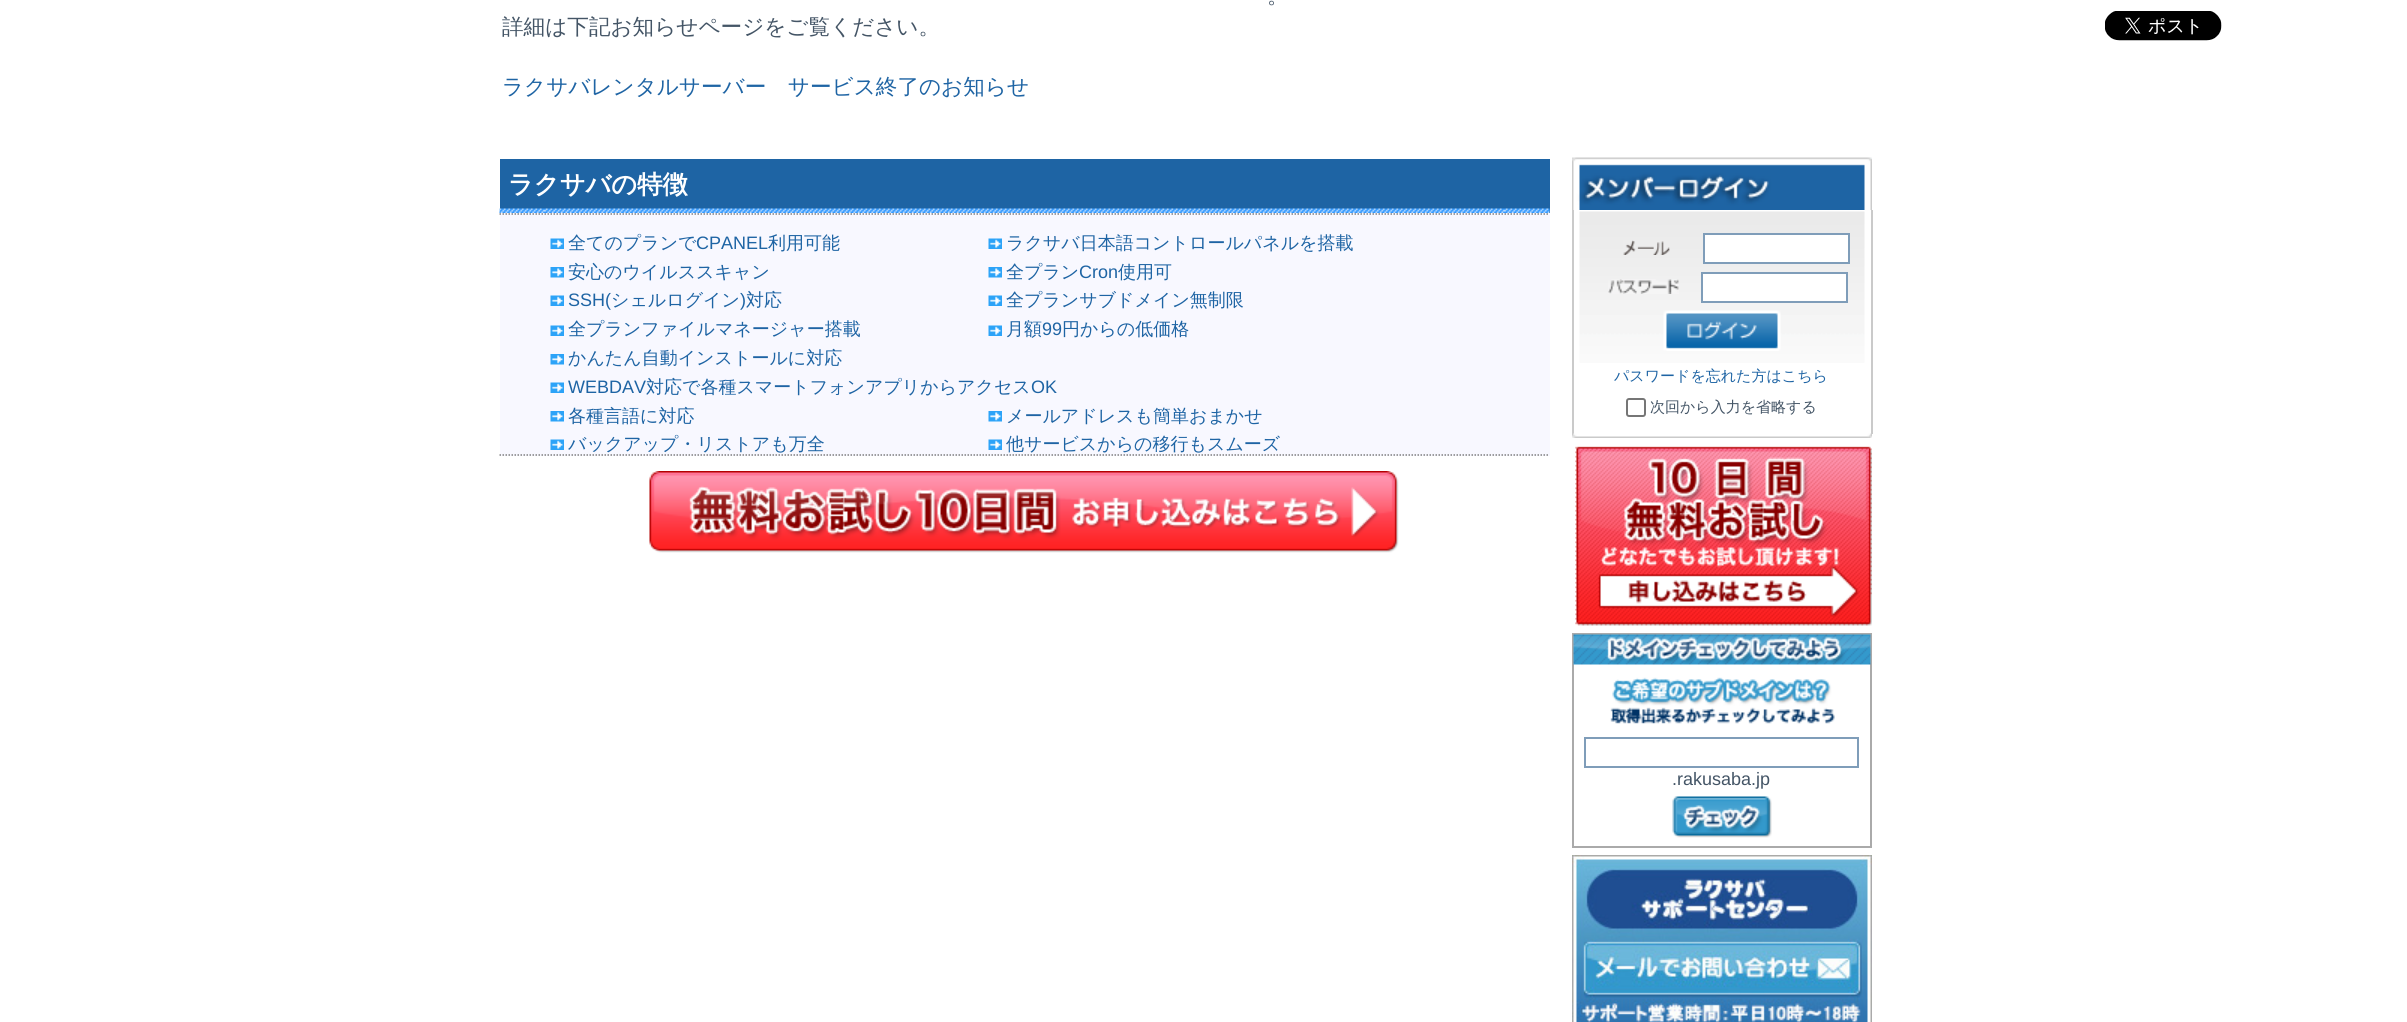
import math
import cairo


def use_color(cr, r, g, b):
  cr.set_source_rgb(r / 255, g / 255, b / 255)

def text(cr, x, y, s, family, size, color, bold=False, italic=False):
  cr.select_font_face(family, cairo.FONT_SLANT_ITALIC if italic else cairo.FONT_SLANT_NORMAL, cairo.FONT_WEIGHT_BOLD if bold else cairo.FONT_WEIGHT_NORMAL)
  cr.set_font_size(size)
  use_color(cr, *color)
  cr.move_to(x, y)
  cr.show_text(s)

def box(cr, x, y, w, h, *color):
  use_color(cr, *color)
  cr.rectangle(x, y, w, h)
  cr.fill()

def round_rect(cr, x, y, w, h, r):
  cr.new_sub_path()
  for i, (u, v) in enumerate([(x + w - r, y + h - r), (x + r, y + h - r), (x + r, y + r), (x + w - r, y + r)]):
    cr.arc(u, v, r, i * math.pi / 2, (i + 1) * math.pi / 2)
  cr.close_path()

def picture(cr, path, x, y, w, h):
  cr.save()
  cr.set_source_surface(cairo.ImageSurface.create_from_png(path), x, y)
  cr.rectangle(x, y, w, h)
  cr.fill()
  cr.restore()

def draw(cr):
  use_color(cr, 255, 255, 255)
  cr.paint()
  box(cr, 500, 159, 1050, 54, 30, 100, 164)
  picture(cr, "img_01.png", 499, 208, 1051, 5)
  box(cr, 500, 213, 1050, 243, 248, 248, 255)
  cr.new_path()
  cr.move_to(499.5, 214)
  cr.line_to(1549.5, 214)
  use_color(cr, 128, 128, 128)
  cr.set_line_width(1.5)
  cr.set_dash([1.5, 1.5])
  cr.stroke()
  cr.new_path()
  cr.move_to(499.5, 455)
  cr.line_to(1549.5, 455)
  cr.stroke()
  picture(cr, "img_02.png", 550, 238, 14, 11)
  picture(cr, "img_02.png", 988, 238, 14, 11)
  picture(cr, "img_03.png", 550, 267, 14, 11)
  picture(cr, "img_03.png", 988, 267, 14, 11)
  picture(cr, "img_02.png", 550, 295, 14, 11)
  picture(cr, "img_02.png", 988, 295, 14, 11)
  picture(cr, "img_02.png", 550, 325, 14, 11)
  picture(cr, "img_02.png", 988, 325, 14, 11)
  picture(cr, "img_03.png", 550, 354, 14, 11)
  picture(cr, "img_02.png", 550, 382, 14, 11)
  picture(cr, "img_03.png", 550, 411, 14, 11)
  picture(cr, "img_03.png", 988, 411, 14, 11)
  picture(cr, "img_02.png", 550, 439, 14, 11)
  picture(cr, "img_02.png", 988, 439, 14, 11)
  picture(cr, "img_04.png", 649, 471, 750, 82)
  picture(cr, "img_05.png", 1572, 157, 300, 53)
  box(cr, 1871, 210, 2, 224, 202, 202, 202)
  box(cr, 1572, 210, 2, 224, 202, 202, 202)
  picture(cr, "img_06.png", 1579, 211, 286, 152)
  picture(cr, "img_07.png", 1623, 240, 47, 15)
  use_color(cr, 255, 255, 255)
  cr.rectangle(1704, 234, 145, 29)
  cr.fill_preserve()
  use_color(cr, 127, 157, 185)
  cr.set_line_width(2)
  cr.set_dash([])
  cr.stroke()
  picture(cr, "img_08.png", 1608, 279, 71, 15)
  use_color(cr, 255, 255, 255)
  cr.rectangle(1702, 273, 145, 29)
  cr.fill_preserve()
  use_color(cr, 127, 157, 185)
  cr.stroke()
  picture(cr, "img_09.png", 1663, 310, 118, 41)
  round_rect(cr, 1627, 399, 18, 17, 2)
  use_color(cr, 118, 118, 118)
  cr.stroke()
  picture(cr, "img_10.png", 1572, 433, 300, 5)
  picture(cr, "img_11.png", 1575, 446, 297, 180)
  cr.rectangle(1573, 634, 298, 213)
  use_color(cr, 170, 170, 170)
  cr.stroke()
  picture(cr, "img_12.png", 1573, 634, 298, 31)
  picture(cr, "img_13.png", 1610, 677, 225, 47)
  cr.rectangle(1585, 738, 273, 29)
  use_color(cr, 127, 157, 185)
  cr.stroke()
  picture(cr, "img_14.png", 1672, 796, 100, 42)
  picture(cr, "img_15.png", 1572, 855, 300, 167)
  picture(cr, "img_16.png", 2105, 11, 117, 30)
  text(cr, 1267, 3, "。", "WenQuanYi Zen Hei Medium", 21.6, (68, 85, 102))
  text(cr, 502, 34, "詳細は下記お知らせページをご覧ください。", "WenQuanYi Zen Hei Medium", 21.6, (68, 85, 102))
  text(cr, 502, 94, "ラクサバレンタルサーバー　サービス終了のお知らせ", "WenQuanYi Zen Hei Medium", 21.6, (30, 100, 164))
  text(cr, 508, 193, "ラクサバの特徴", "WenQuanYi Zen Hei", 25.25, (255, 255, 255), bold=True)
  text(cr, 568, 249, "全てのプランで", "WenQuanYi Zen Hei Medium", 18, (30, 100, 164))
  text(cr, 696, 249, "CPANEL", "Liberation Sans", 18, (30, 100, 164))
  text(cr, 768, 249, "利用可能", "WenQuanYi Zen Hei Medium", 18, (30, 100, 164))
  text(cr, 1006, 249, "ラクサバ日本語コントロールパネルを搭載", "WenQuanYi Zen Hei Medium", 18, (30, 100, 164))
  text(cr, 568, 278, "安心のウイルススキャン", "WenQuanYi Zen Hei Medium", 18, (30, 100, 164))
  text(cr, 1006, 278, "全プラン", "WenQuanYi Zen Hei Medium", 18, (30, 100, 164))
  text(cr, 1079, 278, "Cron", "Liberation Sans", 18, (30, 100, 164))
  text(cr, 1118, 278, "使用可", "WenQuanYi Zen Hei Medium", 18, (30, 100, 164))
  text(cr, 568, 306, "SSH(", "Liberation Sans", 18, (30, 100, 164))
  text(cr, 611, 306, "シェルログイン", "WenQuanYi Zen Hei Medium", 18, (30, 100, 164))
  text(cr, 740, 306, ")", "Liberation Sans", 18, (30, 100, 164))
  text(cr, 746, 306, "対応", "WenQuanYi Zen Hei Medium", 18, (30, 100, 164))
  text(cr, 1006, 306, "全プランサブドメイン無制限", "WenQuanYi Zen Hei Medium", 18, (30, 100, 164))
  text(cr, 568, 335, "全プランファイルマネージャー搭載", "WenQuanYi Zen Hei Medium", 18, (30, 100, 164))
  text(cr, 1006, 335, "月額", "WenQuanYi Zen Hei Medium", 18, (30, 100, 164))
  text(cr, 1042, 335, "99", "Liberation Sans", 18, (30, 100, 164))
  text(cr, 1062, 335, "円からの低価格", "WenQuanYi Zen Hei Medium", 18, (30, 100, 164))
  text(cr, 568, 364, "かんたん自動インストールに対応", "WenQuanYi Zen Hei Medium", 18, (30, 100, 164))
  text(cr, 568, 393, "WEBDAV", "Liberation Sans", 18, (30, 100, 164))
  text(cr, 646, 393, "対応で各種スマートフォンアプリからアクセス", "WenQuanYi Zen Hei Medium", 18, (30, 100, 164))
  text(cr, 1031, 393, "OK", "Liberation Sans", 18, (30, 100, 164))
  text(cr, 568, 422, "各種言語に対応", "WenQuanYi Zen Hei Medium", 18, (30, 100, 164))
  text(cr, 1006, 422, "メールアドレスも簡単おまかせ", "WenQuanYi Zen Hei Medium", 18, (30, 100, 164))
  text(cr, 568, 450, "バックアップ・リストアも万全", "WenQuanYi Zen Hei Medium", 18, (30, 100, 164))
  text(cr, 1006, 450, "他サービスからの移行もスムーズ", "WenQuanYi Zen Hei Medium", 18, (30, 100, 164))
  text(cr, 1614, 381, "パスワードを忘れた方はこちら", "WenQuanYi Zen Hei Medium", 15, (30, 100, 164))
  text(cr, 1650, 412, "次回から入力を省略する", "WenQuanYi Zen Hei Medium", 15, (68, 85, 102))
  text(cr, 1672, 785, ".rakusaba.jp", "Liberation Sans", 18, (68, 85, 102))


surface = cairo.ImageSurface(cairo.FORMAT_RGB24, 2407, 1022)
cr = cairo.Context(surface)
options = cairo.FontOptions()
options.set_hint_metrics(cairo.HINT_METRICS_OFF)
options.set_hint_style(cairo.HINT_STYLE_NONE)
cr.set_font_options(options)
cr.set_miter_limit(4)
draw(cr)
surface.write_to_png("out.png")
